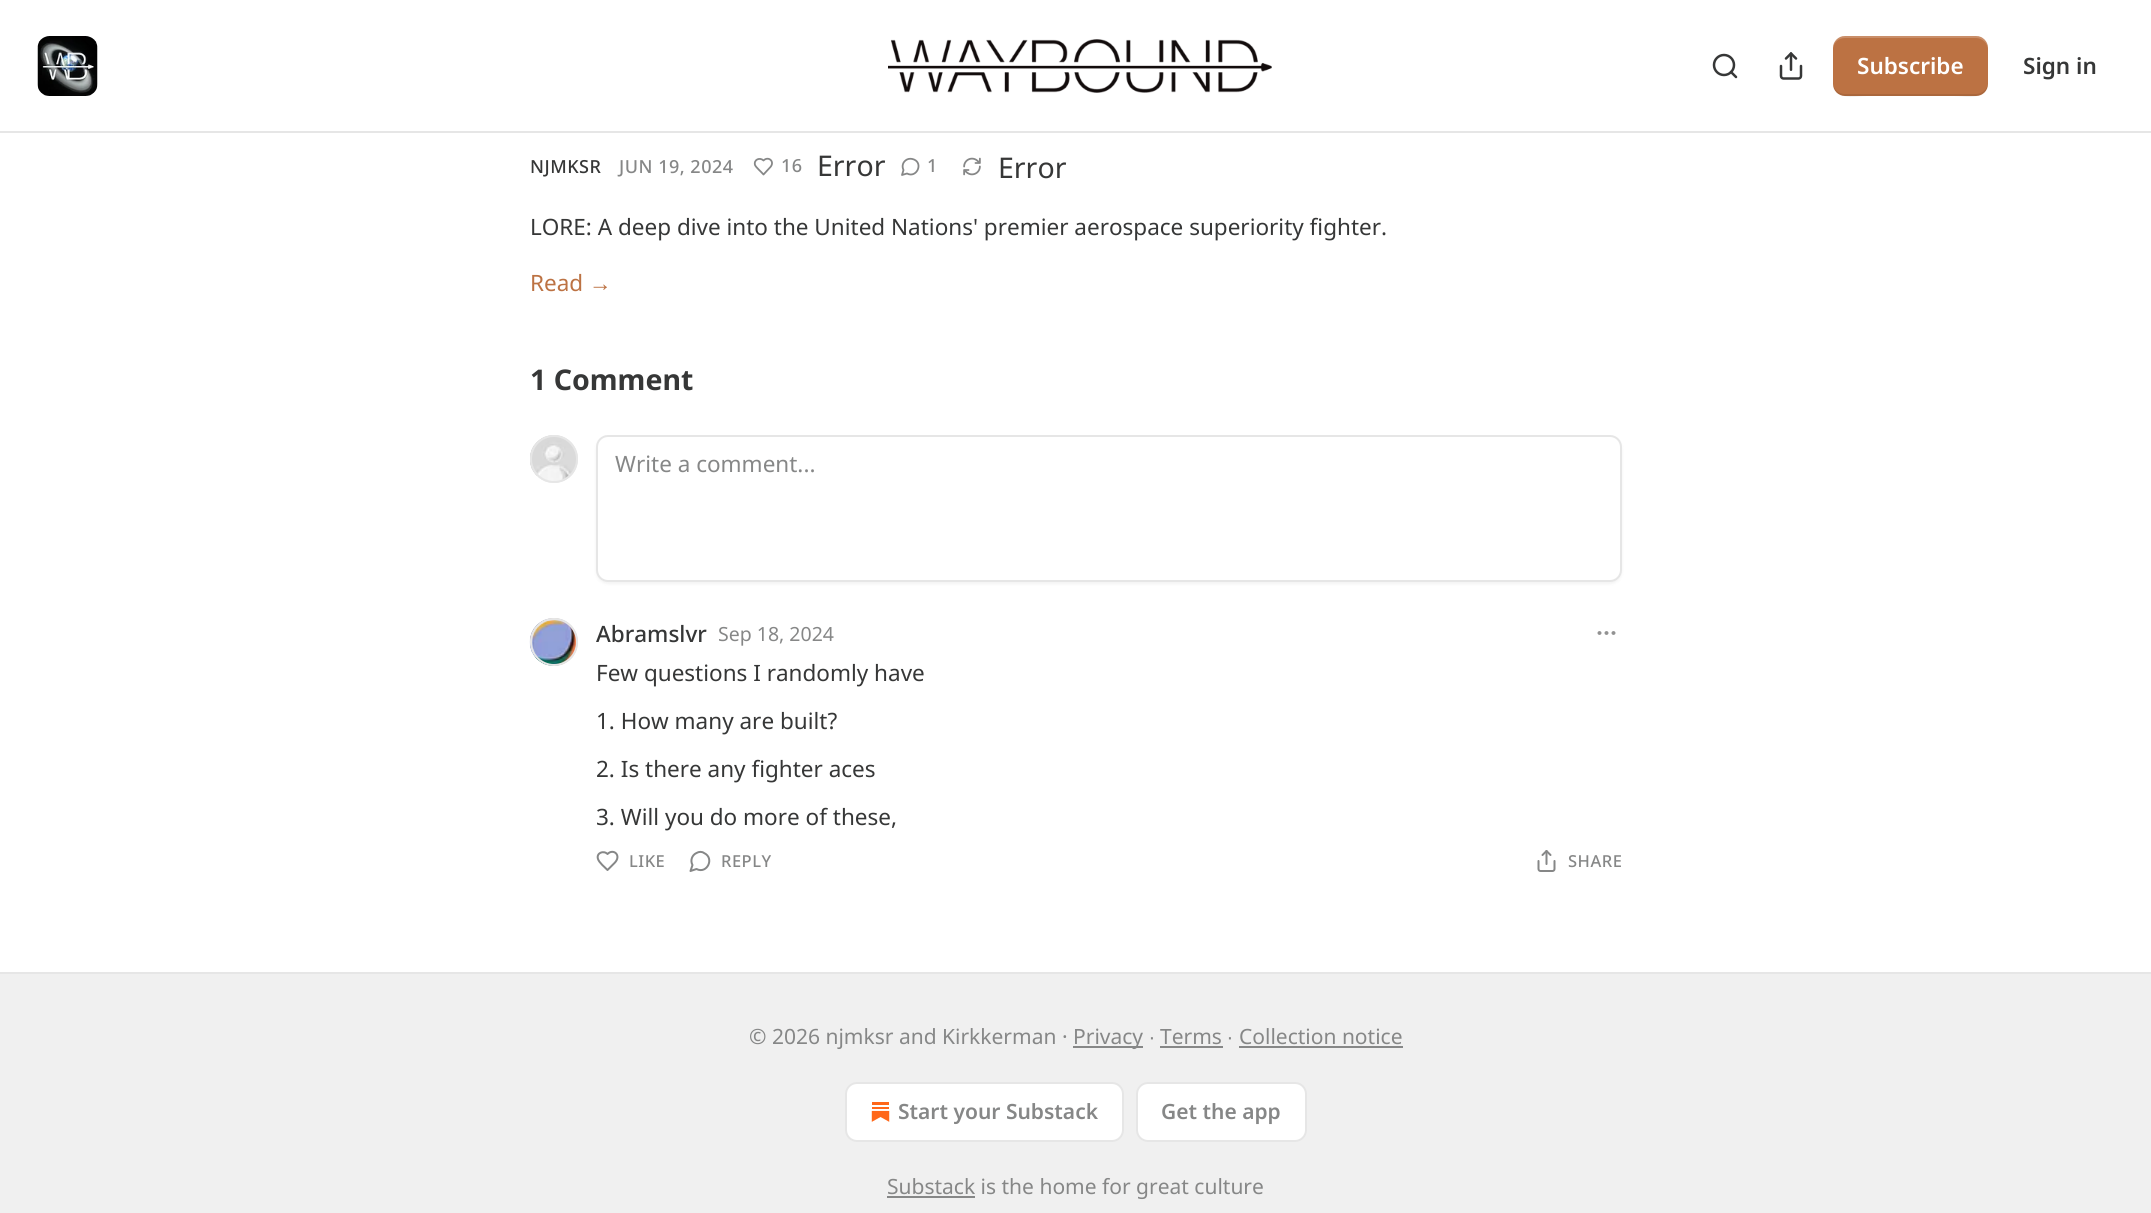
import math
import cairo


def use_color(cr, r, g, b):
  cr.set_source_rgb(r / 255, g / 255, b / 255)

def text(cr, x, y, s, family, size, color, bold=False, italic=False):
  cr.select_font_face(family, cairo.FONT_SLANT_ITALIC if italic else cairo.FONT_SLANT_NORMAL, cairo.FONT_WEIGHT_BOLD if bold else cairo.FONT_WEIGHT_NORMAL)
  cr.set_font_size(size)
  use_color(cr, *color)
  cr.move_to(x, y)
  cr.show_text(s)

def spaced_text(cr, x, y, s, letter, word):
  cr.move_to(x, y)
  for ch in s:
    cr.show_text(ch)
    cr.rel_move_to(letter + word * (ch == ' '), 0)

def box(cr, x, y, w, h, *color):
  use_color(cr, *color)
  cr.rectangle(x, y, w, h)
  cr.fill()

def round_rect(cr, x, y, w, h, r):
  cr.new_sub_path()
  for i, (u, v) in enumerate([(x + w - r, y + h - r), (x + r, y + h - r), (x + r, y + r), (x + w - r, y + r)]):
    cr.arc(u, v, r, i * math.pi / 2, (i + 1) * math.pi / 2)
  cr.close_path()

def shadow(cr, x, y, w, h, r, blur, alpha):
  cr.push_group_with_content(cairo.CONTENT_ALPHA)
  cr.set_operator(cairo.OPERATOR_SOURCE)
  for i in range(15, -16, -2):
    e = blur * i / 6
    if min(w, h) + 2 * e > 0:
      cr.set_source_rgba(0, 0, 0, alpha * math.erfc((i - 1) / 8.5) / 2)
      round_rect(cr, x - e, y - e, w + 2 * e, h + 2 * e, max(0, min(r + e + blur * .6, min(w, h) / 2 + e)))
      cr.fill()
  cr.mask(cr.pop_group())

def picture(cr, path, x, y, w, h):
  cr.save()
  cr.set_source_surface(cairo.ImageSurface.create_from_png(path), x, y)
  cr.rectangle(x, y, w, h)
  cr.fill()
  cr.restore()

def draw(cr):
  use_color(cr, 255, 255, 255)
  cr.paint()
  box(cr, 0, 131, 2151, 2, 230, 230, 230)
  picture(cr, "img_01.png", 37, 36, 61, 60)
  picture(cr, "img_02.png", 888, 39, 384, 54)
  cr.arc(1724, 65, 10, 0, 2 * math.pi)
  use_color(cr, 54, 55, 55)
  cr.set_line_width(2.5)
  cr.stroke()
  cr.new_path()
  cr.move_to(1736, 77)
  cr.line_to(1731, 72)
  cr.set_line_cap(cairo.LINE_CAP_ROUND)
  cr.set_line_join(cairo.LINE_JOIN_ROUND)
  cr.stroke()
  picture(cr, "img_03.png", 1779, 52, 24, 28)
  use_color(cr, 188, 114, 67)
  round_rect(cr, 1833, 36, 155, 60, 12)
  cr.fill()
  cr.set_source_rgba(0, 0, 0, 0.1)
  cr.new_path()
  cr.move_to(1833, 82)
  cr.curve_to(1833, 101, 1853, 96, 1867, 96)
  cr.line_to(1954, 96)
  cr.curve_to(1968, 96, 1988, 101, 1988, 82)
  cr.curve_to(1988, 89, 1982, 94, 1976, 94)
  cr.line_to(1845, 94)
  cr.curve_to(1838, 94, 1833, 89, 1833, 82)
  cr.close_path()
  cr.fill()
  cr.set_source_rgba(1, 1, 1, 0.2)
  cr.new_path()
  cr.move_to(1845, 38)
  cr.line_to(1976, 38)
  cr.curve_to(1982, 38, 1988, 43, 1988, 50)
  cr.curve_to(1988, 31, 1968, 36, 1954, 36)
  cr.line_to(1867, 36)
  cr.curve_to(1853, 36, 1833, 31, 1833, 50)
  cr.curve_to(1833, 43, 1838, 38, 1845, 38)
  cr.close_path()
  cr.fill()
  cr.new_path()
  cr.move_to(769.5, 168)
  cr.curve_to(776, 162, 768.5, 155.5, 763.5, 160.5)
  cr.curve_to(760, 157, 753.5, 159.5, 755, 165)
  cr.curve_to(756, 167.5, 761.5, 172, 763.5, 174.5)
  cr.close_path()
  use_color(cr, 134, 135, 135)
  cr.set_line_width(1.8)
  cr.stroke()
  cr.new_path()
  cr.move_to(907, 173.5)
  cr.curve_to(916.5, 178.5, 923.5, 163.5, 914, 159.5)
  cr.curve_to(911.5, 158.5, 909, 158.5, 907, 159.5)
  cr.curve_to(903, 161.5, 901.5, 166, 903.5, 170)
  cr.line_to(902, 175)
  cr.close_path()
  cr.stroke()
  picture(cr, "img_04.png", 963, 157, 18, 19)
  cr.arc(554, 459, 23, 0, 2 * math.pi)
  use_color(cr, 230, 230, 230)
  cr.set_line_width(2)
  cr.set_line_cap(cairo.LINE_CAP_BUTT)
  cr.set_line_join(cairo.LINE_JOIN_MITER)
  cr.stroke()
  picture(cr, "img_05.png", 530, 435, 47, 48)
  cr.arc(554, 459, 23, 0, 2 * math.pi)
  cr.stroke()
  use_color(cr, 0, 0, 0)
  shadow(cr, 596, 437, 1026, 147, 12, 1.5, 0.05)
  use_color(cr, 255, 255, 255)
  round_rect(cr, 597, 436, 1024, 145, 11)
  cr.fill_preserve()
  use_color(cr, 230, 230, 230)
  cr.stroke()
  cr.arc(554, 642, 23, 0, 2 * math.pi)
  cr.stroke()
  picture(cr, "img_06.png", 529, 618, 49, 48)
  cr.arc(554, 642, 23, 0, 2 * math.pi)
  cr.stroke()
  cr.arc(1606.5, 633, 1, 0, 2 * math.pi)
  use_color(cr, 146, 146, 146)
  cr.stroke()
  cr.arc(1613.5, 633, 1, 0, 2 * math.pi)
  cr.stroke()
  cr.arc(1599.5, 633, 1, 0, 2 * math.pi)
  cr.stroke()
  cr.new_path()
  cr.move_to(614.5, 863)
  cr.curve_to(622, 855.5, 613.5, 848, 607.5, 854)
  cr.curve_to(603.5, 850, 596, 853, 598, 859)
  cr.curve_to(599, 862.5, 605, 867.5, 607.5, 870)
  cr.close_path()
  use_color(cr, 134, 135, 135)
  cr.set_line_cap(cairo.LINE_CAP_ROUND)
  cr.set_line_join(cairo.LINE_JOIN_ROUND)
  cr.stroke()
  cr.new_path()
  cr.move_to(696.5, 869)
  cr.curve_to(707, 874.5, 715, 858, 704, 853)
  cr.curve_to(702, 851.5, 699, 851.5, 696.5, 853)
  cr.curve_to(692, 855, 690, 860.5, 692.5, 865)
  cr.line_to(690.5, 871)
  cr.close_path()
  cr.stroke()
  picture(cr, "img_07.png", 1537, 850, 19, 22)
  box(cr, 0, 974, 2151, 239, 240, 240, 240)
  box(cr, 0, 972, 2151, 2, 230, 230, 230)
  box(cr, 1073, 1046, 70, 2, 134, 135, 135)
  box(cr, 1160, 1046, 63, 2, 134, 135, 135)
  box(cr, 1239, 1046, 164, 2, 134, 135, 135)
  use_color(cr, 255, 255, 255)
  round_rect(cr, 846, 1083, 277, 58, 11)
  cr.fill_preserve()
  use_color(cr, 230, 230, 230)
  cr.set_line_cap(cairo.LINE_CAP_BUTT)
  cr.set_line_join(cairo.LINE_JOIN_MITER)
  cr.stroke()
  picture(cr, "img_08.png", 871, 1102, 19, 20)
  use_color(cr, 255, 255, 255)
  round_rect(cr, 1137, 1083, 169, 58, 11)
  cr.fill_preserve()
  use_color(cr, 230, 230, 230)
  cr.stroke()
  box(cr, 887, 1196, 88, 2, 134, 135, 135)
  text(cr, 1857, 74, "Subscribe", "Noto Sans SemiBold", 22.5, (255, 255, 255))
  text(cr, 2023, 74, "Sign in", "Noto Sans SemiBold", 22.5, (54, 55, 55))
  cr.select_font_face("Noto Sans Medium")
  cr.set_font_size(18)
  spaced_text(cr, 530, 173, "NJMKSR", 0.5, 0)
  use_color(cr, 134, 135, 135)
  spaced_text(cr, 619, 173, "JUN 19, 2024", 0.5, 0)
  spaced_text(cr, 781, 172, "16", 0.5, 0)
  text(cr, 817, 176, "Error", "Noto Sans", 28.5, (54, 55, 55))
  cr.select_font_face("Noto Sans Medium")
  cr.set_font_size(18)
  use_color(cr, 134, 135, 135)
  spaced_text(cr, 927, 172, "1", 0.5, 0)
  text(cr, 998, 178, "Error", "Noto Sans", 28.5, (54, 55, 55))
  text(cr, 530, 235, "LORE: A deep dive into the United Nations' premier aerospace superiority fighter.", "Noto Sans", 22.5, (54, 55, 55))
  text(cr, 530, 291, "Read", "Noto Sans", 22.5, (188, 114, 67))
  text(cr, 589, 291, "→", "Liberation Sans", 22.5, (188, 114, 67))
  text(cr, 530, 390, "1 Comment", "Noto Sans", 28.5, (54, 55, 55), bold=True)
  text(cr, 615, 472, "Write a comment...", "Noto Sans", 22.5, (134, 135, 135))
  text(cr, 596, 642, "Abramslvr", "Noto Sans Medium", 22.5, (54, 55, 55))
  text(cr, 718, 641, "Sep 18, 2024", "Noto Sans", 19.5, (134, 135, 135))
  text(cr, 596, 681, "Few questions I randomly have", "Noto Sans", 22.5, (54, 55, 55))
  text(cr, 596, 729, "1. How many are built?", "Noto Sans", 22.5, (54, 55, 55))
  text(cr, 596, 777, "2. Is there any fighter aces", "Noto Sans", 22.5, (54, 55, 55))
  text(cr, 596, 825, "3. Will you do more of these,", "Noto Sans", 22.5, (54, 55, 55))
  cr.select_font_face("Noto Sans Medium")
  cr.set_font_size(16.5)
  use_color(cr, 134, 135, 135)
  spaced_text(cr, 629, 867, "LIKE", 0.5, 0)
  spaced_text(cr, 721, 867, "REPLY", 0.5, 0)
  spaced_text(cr, 1568, 867, "SHARE", 0.5, 0)
  text(cr, 749, 1044, "© 2026 njmksr and Kirkkerman ·", "Noto Sans", 21, (134, 135, 135))
  text(cr, 1073, 1044, "Privacy", "Noto Sans", 21, (134, 135, 135))
  text(cr, 1149, 1044, "∙", "Liberation Sans", 21, (134, 135, 135))
  text(cr, 1160, 1044, "Terms", "Noto Sans", 21, (134, 135, 135))
  text(cr, 1227, 1044, "∙", "Liberation Sans", 21, (134, 135, 135))
  text(cr, 1239, 1044, "Collection notice", "Noto Sans", 21, (134, 135, 135))
  text(cr, 898, 1119, "Start your Substack", "Noto Sans SemiBold", 21, (134, 135, 135))
  text(cr, 1161, 1119, "Get the app", "Noto Sans SemiBold", 21, (134, 135, 135))
  text(cr, 887, 1194, "Substack is the home for great culture", "Noto Sans", 21, (134, 135, 135))


surface = cairo.ImageSurface(cairo.FORMAT_RGB24, 2151, 1213)
cr = cairo.Context(surface)
options = cairo.FontOptions()
options.set_hint_metrics(cairo.HINT_METRICS_OFF)
options.set_hint_style(cairo.HINT_STYLE_NONE)
cr.set_font_options(options)
cr.set_miter_limit(4)
draw(cr)
surface.write_to_png("out.png")
